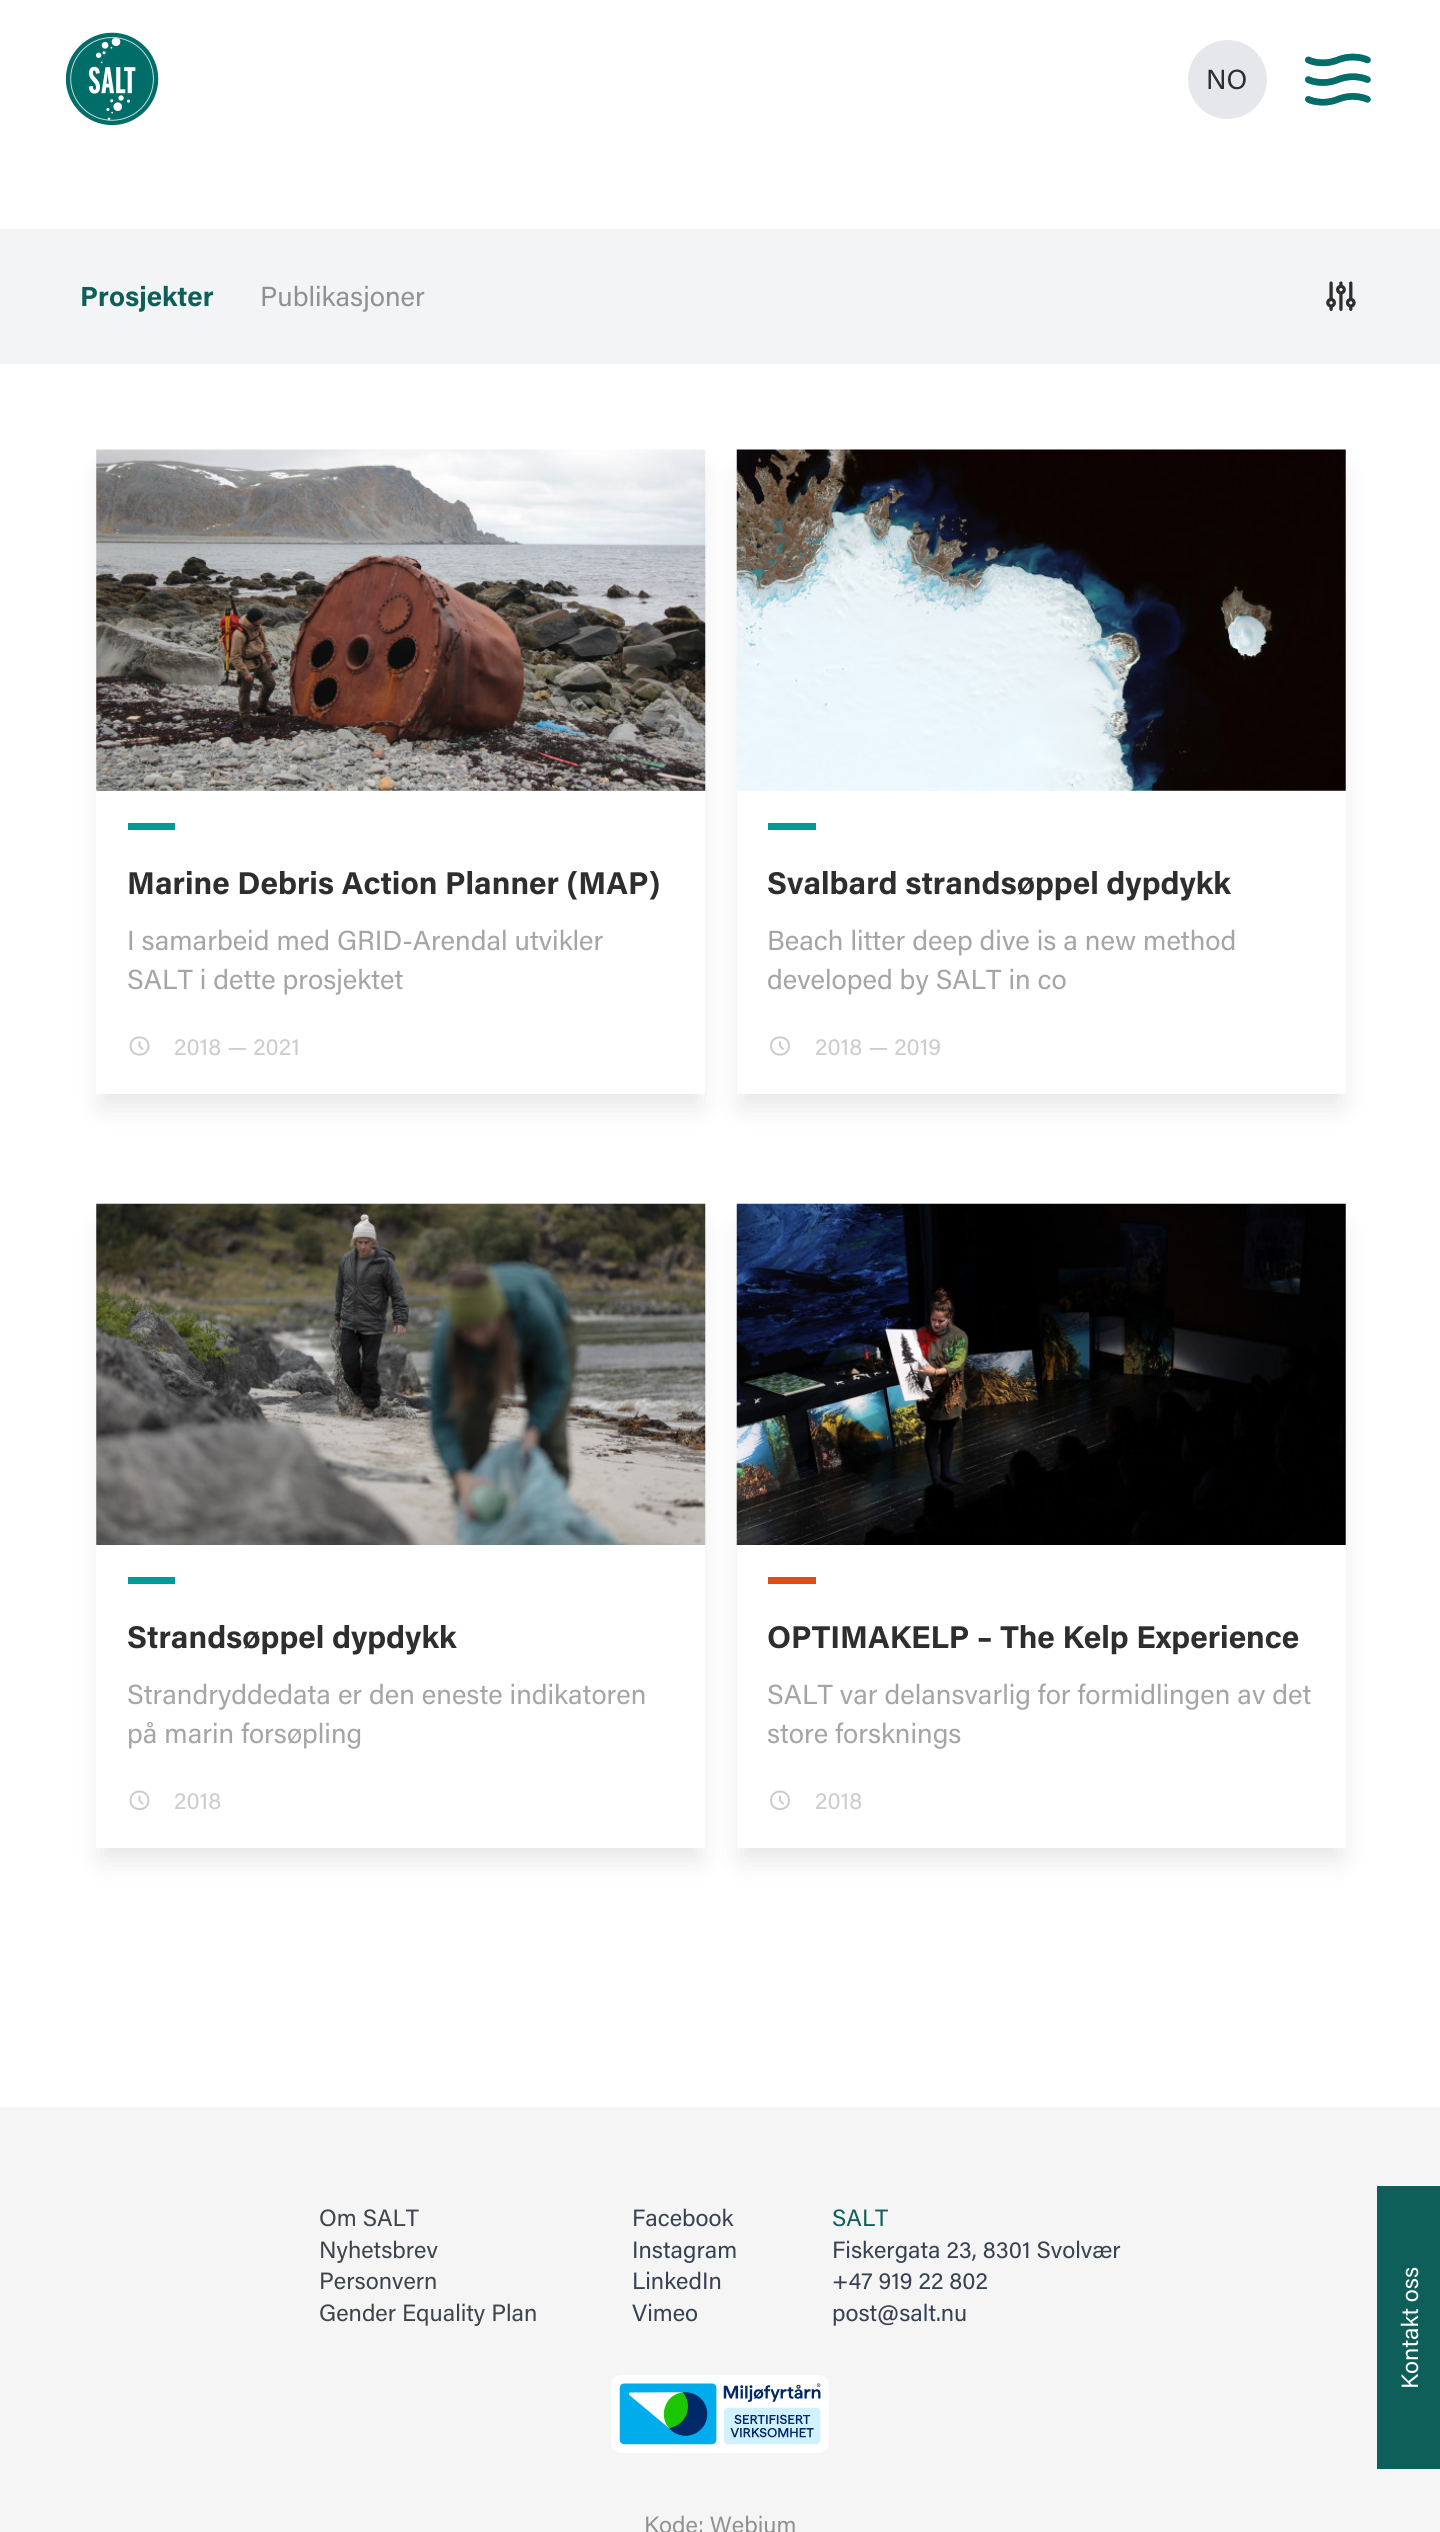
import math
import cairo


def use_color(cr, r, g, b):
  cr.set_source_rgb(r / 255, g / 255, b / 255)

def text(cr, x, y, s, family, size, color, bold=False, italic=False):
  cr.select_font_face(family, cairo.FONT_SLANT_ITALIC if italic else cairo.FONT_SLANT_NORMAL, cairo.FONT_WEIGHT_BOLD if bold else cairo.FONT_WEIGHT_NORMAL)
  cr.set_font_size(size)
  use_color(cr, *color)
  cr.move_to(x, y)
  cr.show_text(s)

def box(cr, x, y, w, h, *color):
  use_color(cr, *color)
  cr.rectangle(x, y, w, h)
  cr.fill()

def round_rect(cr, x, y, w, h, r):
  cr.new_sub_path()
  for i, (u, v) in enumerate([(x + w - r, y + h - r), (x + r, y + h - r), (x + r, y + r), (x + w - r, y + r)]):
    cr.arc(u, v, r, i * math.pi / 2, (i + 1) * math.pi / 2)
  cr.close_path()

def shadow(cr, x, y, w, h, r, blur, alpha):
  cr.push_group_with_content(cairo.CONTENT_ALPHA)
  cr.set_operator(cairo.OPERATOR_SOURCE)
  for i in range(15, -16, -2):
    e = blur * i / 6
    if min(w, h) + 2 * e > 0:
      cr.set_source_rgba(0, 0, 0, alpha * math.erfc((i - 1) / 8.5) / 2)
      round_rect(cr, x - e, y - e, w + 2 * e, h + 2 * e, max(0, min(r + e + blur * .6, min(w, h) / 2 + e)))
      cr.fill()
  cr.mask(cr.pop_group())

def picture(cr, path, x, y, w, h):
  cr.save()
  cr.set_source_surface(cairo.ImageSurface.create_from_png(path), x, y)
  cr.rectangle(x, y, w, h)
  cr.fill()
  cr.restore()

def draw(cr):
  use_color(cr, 255, 255, 255)
  cr.paint()
  picture(cr, "img_01.png", 65, 32, 94, 94)
  use_color(cr, 229, 231, 235)
  cr.arc(1227.5, 79.5, 39.5, 0, 2 * math.pi)
  cr.fill()
  picture(cr, "img_02.png", 1305, 53, 66, 53)
  box(cr, 0, 229, 1440, 135, 243, 244, 246)
  picture(cr, "img_03.png", 1326, 281, 30, 30)
  cr.save()
  cr.set_fill_rule(cairo.FILL_RULE_EVEN_ODD)
  cr.new_path()
  cr.move_to(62, 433)
  cr.line_to(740, 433)
  cr.line_to(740, 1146)
  cr.line_to(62, 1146)
  cr.close_path()
  cr.move_to(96, 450)
  cr.line_to(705, 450)
  cr.line_to(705, 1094)
  cr.line_to(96, 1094)
  cr.close_path()
  cr.clip()
  use_color(cr, 0, 0, 0)
  shadow(cr, 102, 473, 598, 633, 0, 13, 0.1)
  cr.restore()
  picture(cr, "img_04.png", 96, 449, 610, 342)
  box(cr, 128, 823, 47, 7, 0, 154, 153)
  cr.new_path()
  cr.move_to(139.5, 1042)
  cr.line_to(139.5, 1046)
  cr.line_to(142.5, 1049)
  cr.move_to(148.5, 1046)
  cr.curve_to(148.5, 1057.5, 130.5, 1057.5, 130.5, 1046)
  cr.curve_to(130.5, 1034.5, 148.5, 1034.5, 148.5, 1046)
  cr.close_path()
  use_color(cr, 204, 204, 204)
  cr.set_line_cap(cairo.LINE_CAP_ROUND)
  cr.set_line_join(cairo.LINE_JOIN_ROUND)
  cr.stroke()
  cr.save()
  cr.set_fill_rule(cairo.FILL_RULE_EVEN_ODD)
  cr.new_path()
  cr.move_to(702, 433)
  cr.line_to(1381, 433)
  cr.line_to(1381, 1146)
  cr.line_to(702, 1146)
  cr.close_path()
  cr.move_to(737, 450)
  cr.line_to(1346, 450)
  cr.line_to(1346, 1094)
  cr.line_to(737, 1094)
  cr.close_path()
  cr.clip()
  use_color(cr, 0, 0, 0)
  shadow(cr, 742, 473, 599, 633, 0, 13, 0.1)
  cr.restore()
  picture(cr, "img_05.png", 736, 449, 610, 342)
  box(cr, 768, 823, 48, 7, 0, 154, 153)
  cr.new_path()
  cr.move_to(780, 1042)
  cr.line_to(780, 1046)
  cr.line_to(783, 1049)
  cr.move_to(789, 1046)
  cr.curve_to(789, 1057.5, 771, 1057.5, 771, 1046)
  cr.curve_to(771, 1034.5, 789, 1034.5, 789, 1046)
  cr.close_path()
  use_color(cr, 204, 204, 204)
  cr.stroke()
  cr.save()
  cr.set_fill_rule(cairo.FILL_RULE_EVEN_ODD)
  cr.new_path()
  cr.move_to(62, 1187)
  cr.line_to(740, 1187)
  cr.line_to(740, 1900)
  cr.line_to(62, 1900)
  cr.close_path()
  cr.move_to(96, 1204)
  cr.line_to(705, 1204)
  cr.line_to(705, 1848)
  cr.line_to(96, 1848)
  cr.close_path()
  cr.clip()
  use_color(cr, 0, 0, 0)
  shadow(cr, 102, 1227, 598, 633, 0, 13, 0.1)
  cr.restore()
  picture(cr, "img_06.png", 96, 1203, 610, 342)
  box(cr, 128, 1577, 47, 7, 0, 154, 153)
  cr.new_path()
  cr.move_to(139.5, 1796.5)
  cr.line_to(139.5, 1800.5)
  cr.line_to(142.5, 1803.5)
  cr.move_to(148.5, 1800.5)
  cr.curve_to(148.5, 1812, 130.5, 1812, 130.5, 1800.5)
  cr.curve_to(130.5, 1788.5, 148.5, 1788.5, 148.5, 1800.5)
  cr.close_path()
  use_color(cr, 204, 204, 204)
  cr.stroke()
  cr.save()
  cr.set_fill_rule(cairo.FILL_RULE_EVEN_ODD)
  cr.new_path()
  cr.move_to(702, 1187)
  cr.line_to(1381, 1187)
  cr.line_to(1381, 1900)
  cr.line_to(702, 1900)
  cr.close_path()
  cr.move_to(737, 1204)
  cr.line_to(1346, 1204)
  cr.line_to(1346, 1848)
  cr.line_to(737, 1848)
  cr.close_path()
  cr.clip()
  use_color(cr, 0, 0, 0)
  shadow(cr, 742, 1227, 599, 633, 0, 13, 0.1)
  cr.restore()
  picture(cr, "img_07.png", 736, 1203, 610, 342)
  box(cr, 768, 1577, 48, 7, 217, 78, 25)
  cr.new_path()
  cr.move_to(780, 1796.5)
  cr.line_to(780, 1800.5)
  cr.line_to(783, 1803.5)
  cr.move_to(789, 1800.5)
  cr.curve_to(789, 1812, 771, 1812, 771, 1800.5)
  cr.curve_to(771, 1788.5, 789, 1788.5, 789, 1800.5)
  cr.close_path()
  use_color(cr, 204, 204, 204)
  cr.stroke()
  box(cr, 0, 2107, 1440, 425, 245, 245, 245)
  picture(cr, "img_08.png", 611, 2375, 218, 78)
  box(cr, 1377, 2186, 63, 283, 14, 95, 90)
  text(cr, 1206, 89, "NO", "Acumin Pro", 27.6, (46, 46, 46))
  text(cr, 80, 306, "Prosjekter", "Acumin Pro", 27.6, (14, 95, 90), bold=True)
  text(cr, 260, 306, "Publikasjoner", "Acumin Pro", 27.6, (145, 145, 145))
  text(cr, 127, 894, "Marine Debris Action Planner (MAP)", "Acumin Pro", 31.5, (46, 46, 46), bold=True)
  text(cr, 127, 950, "I samarbeid med GRID-Arendal utvikler", "Acumin Pro", 27.6, (165, 165, 165))
  text(cr, 127, 989, "SALT i dette prosjektet", "Acumin Pro", 27.6, (165, 165, 165))
  text(cr, 174, 1055, "2018 — 2021", "Acumin Pro", 23.6, (204, 204, 204))
  text(cr, 767, 894, "Svalbard strandsøppel dypdykk", "Acumin Pro", 31.5, (46, 46, 46), bold=True)
  text(cr, 767, 950, "Beach litter deep dive is a new method", "Acumin Pro", 27.6, (165, 165, 165))
  text(cr, 767, 989, "developed by SALT in co", "Acumin Pro", 27.6, (165, 165, 165))
  text(cr, 815, 1055, "2018 — 2019", "Acumin Pro", 23.6, (204, 204, 204))
  text(cr, 127, 1648, "Strandsøppel dypdykk", "Acumin Pro", 31.5, (46, 46, 46), bold=True)
  text(cr, 127, 1704, "Strandryddedata er den eneste indikatoren", "Acumin Pro", 27.6, (165, 165, 165))
  text(cr, 127, 1743, "på marin forsøpling", "Acumin Pro", 27.6, (165, 165, 165))
  text(cr, 174, 1809, "2018", "Acumin Pro", 23.6, (204, 204, 204))
  text(cr, 767, 1648, "OPTIMAKELP – The Kelp Experience", "Acumin Pro", 31.5, (46, 46, 46), bold=True)
  text(cr, 767, 1704, "SALT var delansvarlig for formidlingen av det", "Acumin Pro", 27.6, (165, 165, 165))
  text(cr, 767, 1743, "store forsknings", "Acumin Pro", 27.6, (165, 165, 165))
  text(cr, 815, 1809, "2018", "Acumin Pro", 23.6, (204, 204, 204))
  text(cr, 319, 2226, "Om SALT", "Acumin Pro", 23.6, (62, 68, 74))
  text(cr, 319, 2258, "Nyhetsbrev", "Acumin Pro", 23.6, (62, 68, 74))
  text(cr, 319, 2289, "Personvern", "Acumin Pro", 23.6, (62, 68, 74))
  text(cr, 319, 2321, "Gender Equality Plan", "Acumin Pro", 23.6, (62, 68, 74))
  text(cr, 632, 2226, "Facebook", "Acumin Pro", 23.6, (55, 65, 81))
  text(cr, 632, 2258, "Instagram", "Acumin Pro", 23.6, (55, 65, 81))
  text(cr, 632, 2289, "LinkedIn", "Acumin Pro", 23.6, (55, 65, 81))
  text(cr, 632, 2321, "Vimeo", "Acumin Pro", 23.6, (55, 65, 81))
  text(cr, 832, 2226, "SALT", "Acumin Pro", 23.6, (14, 95, 90))
  text(cr, 832, 2258, "Fiskergata 23, 8301 Svolvær", "Acumin Pro", 23.6, (55, 65, 81))
  text(cr, 832, 2289, "+47 919 22 802", "Acumin Pro", 23.6, (55, 65, 81))
  text(cr, 832, 2321, "post@salt.nu", "Acumin Pro", 23.6, (55, 65, 81))
  text(cr, 644, 2533, "Kode: Webium", "Acumin Pro", 23.6, (145, 145, 145))
  cr.save()
  cr.translate(1418, 2389)
  cr.rotate(-90 * math.pi / 180)
  text(cr, 0, 0, "Kontakt oss", "Acumin Pro", 23.6, (255, 255, 255))
  cr.restore()


surface = cairo.ImageSurface(cairo.FORMAT_RGB24, 1440, 2532)
cr = cairo.Context(surface)
options = cairo.FontOptions()
options.set_hint_metrics(cairo.HINT_METRICS_OFF)
options.set_hint_style(cairo.HINT_STYLE_NONE)
cr.set_font_options(options)
cr.set_miter_limit(4)
draw(cr)
surface.write_to_png("out.png")
